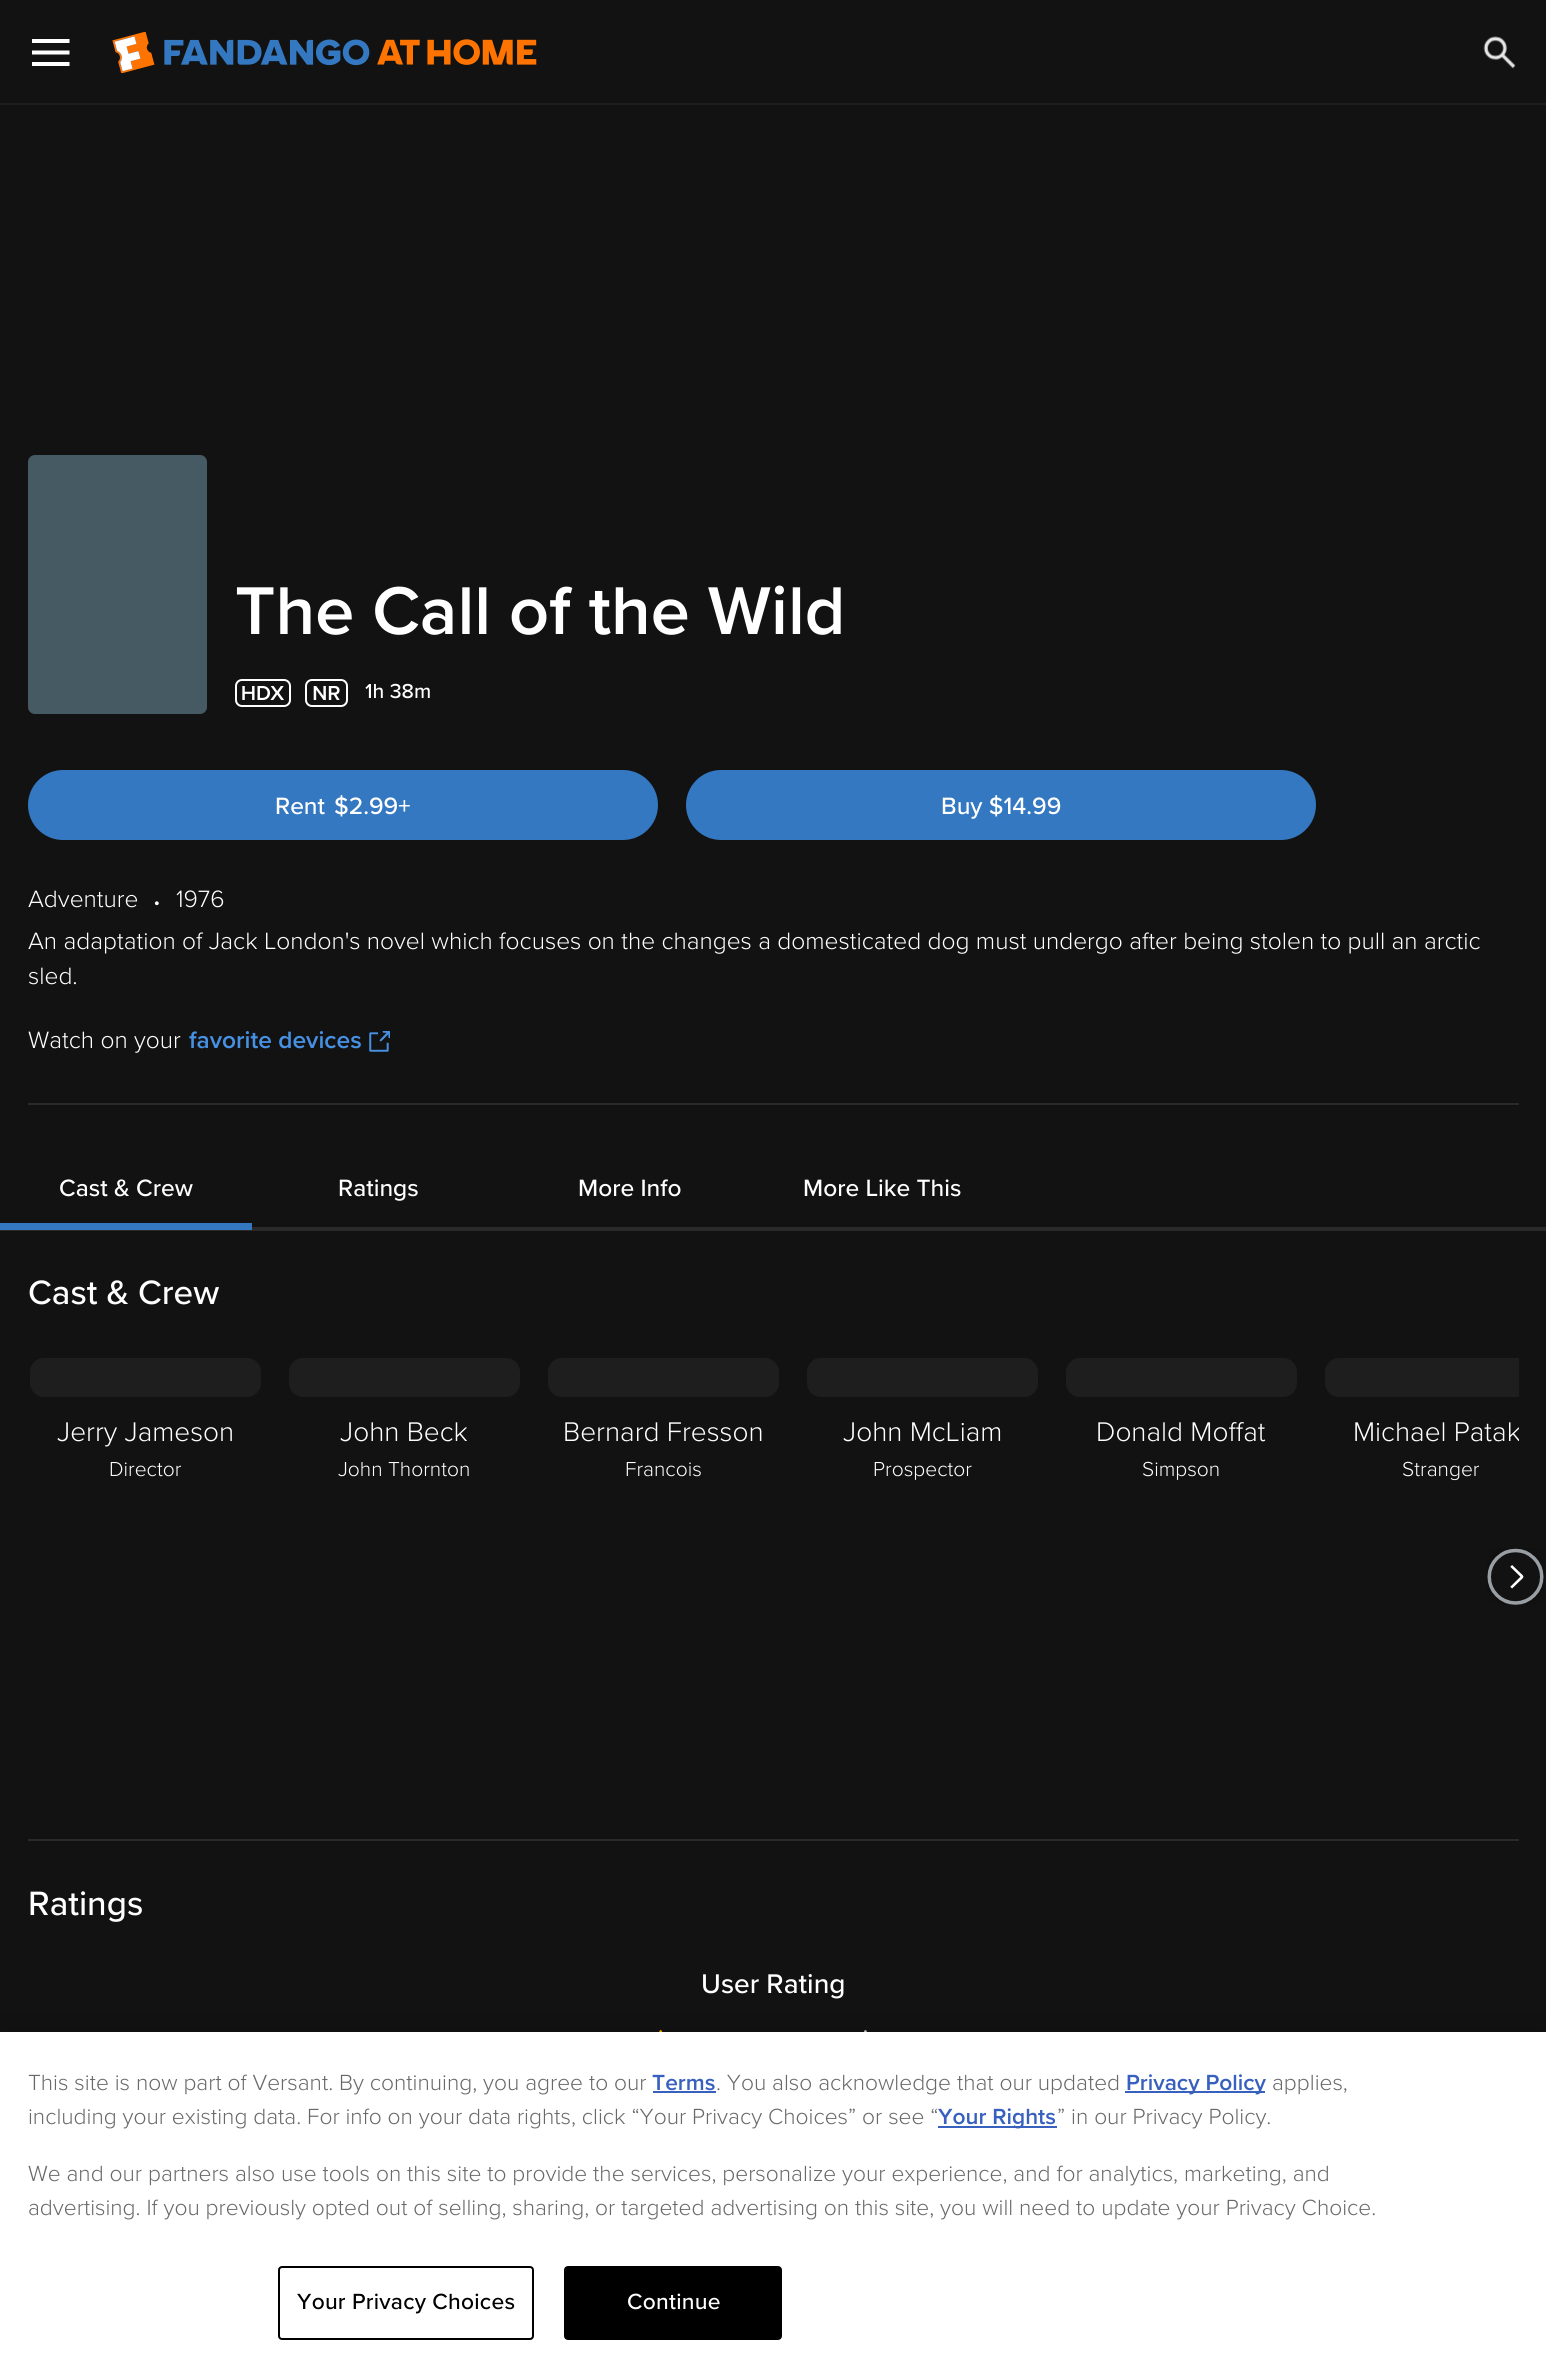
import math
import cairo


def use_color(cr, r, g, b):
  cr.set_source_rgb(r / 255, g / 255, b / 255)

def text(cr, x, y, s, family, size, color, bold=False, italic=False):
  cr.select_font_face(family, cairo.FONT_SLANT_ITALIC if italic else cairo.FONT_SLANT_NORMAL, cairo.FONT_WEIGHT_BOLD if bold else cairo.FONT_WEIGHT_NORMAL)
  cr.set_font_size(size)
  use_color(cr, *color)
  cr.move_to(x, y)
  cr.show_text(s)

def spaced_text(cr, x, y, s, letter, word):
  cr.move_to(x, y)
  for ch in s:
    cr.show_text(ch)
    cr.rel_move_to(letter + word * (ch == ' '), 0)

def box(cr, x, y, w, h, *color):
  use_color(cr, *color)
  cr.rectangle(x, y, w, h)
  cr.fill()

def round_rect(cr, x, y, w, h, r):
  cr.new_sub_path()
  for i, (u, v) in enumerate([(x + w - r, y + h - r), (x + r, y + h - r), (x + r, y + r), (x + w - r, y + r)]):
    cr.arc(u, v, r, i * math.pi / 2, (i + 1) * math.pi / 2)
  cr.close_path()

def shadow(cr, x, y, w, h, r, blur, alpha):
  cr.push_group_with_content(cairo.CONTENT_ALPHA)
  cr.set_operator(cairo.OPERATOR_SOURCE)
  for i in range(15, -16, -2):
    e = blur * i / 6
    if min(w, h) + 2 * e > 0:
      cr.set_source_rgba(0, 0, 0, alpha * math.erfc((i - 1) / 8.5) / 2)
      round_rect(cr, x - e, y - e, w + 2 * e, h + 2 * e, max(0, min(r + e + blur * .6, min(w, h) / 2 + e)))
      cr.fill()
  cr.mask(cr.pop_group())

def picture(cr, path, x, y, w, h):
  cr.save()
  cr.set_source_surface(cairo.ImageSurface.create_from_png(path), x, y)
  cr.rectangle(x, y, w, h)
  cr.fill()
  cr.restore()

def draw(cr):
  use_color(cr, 18, 18, 18)
  cr.paint()
  box(cr, 0, 103, 1546, 2, 30, 30, 30)
  use_color(cr, 255, 255, 255)
  cr.set_fill_rule(cairo.FILL_RULE_EVEN_ODD)
  cr.new_path()
  cr.move_to(69.5, 43)
  cr.line_to(32, 43)
  cr.line_to(32, 39)
  cr.line_to(69.5, 39)
  cr.close_path()
  cr.move_to(69.5, 54.5)
  cr.line_to(32, 54.5)
  cr.line_to(32, 50.5)
  cr.line_to(69.5, 50.5)
  cr.close_path()
  cr.move_to(69.5, 66)
  cr.line_to(32, 66)
  cr.line_to(32, 62)
  cr.line_to(69.5, 62)
  cr.close_path()
  cr.fill()
  picture(cr, "img_01.png", 112, 32, 425, 41)
  picture(cr, "img_02.png", 1483, 36, 33, 33)
  use_color(cr, 70, 90, 99)
  round_rect(cr, 28, 455, 179, 259, 7)
  cr.fill()
  picture(cr, "img_03.png", 235, 679, 56, 28)
  picture(cr, "img_04.png", 305, 679, 43, 28)
  use_color(cr, 52, 120, 193)
  round_rect(cr, 28, 770, 630, 70, 35)
  cr.fill()
  round_rect(cr, 686, 770, 630, 70, 35)
  cr.fill()
  box(cr, 28, 1103, 1491, 2, 42, 42, 42)
  picture(cr, "img_05.png", 369, 1031, 21, 21)
  box(cr, 0, 1227, 1546, 4, 42, 42, 42)
  box(cr, 0, 1223, 252, 7, 52, 120, 193)
  box(cr, 28, 1839, 1491, 2, 42, 42, 42)
  use_color(cr, 30, 30, 30)
  round_rect(cr, 30, 1358, 231, 39, 14)
  cr.fill()
  round_rect(cr, 289, 1358, 231, 39, 14)
  cr.fill()
  round_rect(cr, 548, 1358, 231, 39, 14)
  cr.fill()
  round_rect(cr, 807, 1358, 231, 39, 14)
  cr.fill()
  round_rect(cr, 1066, 1358, 231, 39, 14)
  cr.fill()
  cr.new_path()
  cr.move_to(1339, 1358)
  cr.line_to(1519, 1358)
  cr.line_to(1519, 1397)
  cr.line_to(1339, 1397)
  cr.curve_to(1331.5, 1397, 1325, 1390.5, 1325, 1383)
  cr.line_to(1325, 1372)
  cr.curve_to(1325, 1364.5, 1331.5, 1358, 1339, 1358)
  cr.close_path()
  cr.fill()
  picture(cr, "img_06.png", 1487, 1548, 57, 57)
  picture(cr, "img_07.png", 659, 2030, 4, 2)
  picture(cr, "img_08.png", 864, 2030, 3, 2)
  use_color(cr, 0, 0, 0)
  shadow(cr, 0, 2032, 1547, 325, 0, 16, 0.2)
  box(cr, 0, 2032, 1546, 325, 255, 255, 255)
  box(cr, 653, 2091, 63, 2, 56, 96, 190)
  box(cr, 1125, 2091, 140, 2, 56, 96, 190)
  box(cr, 938, 2126, 119, 2, 56, 96, 190)
  round_rect(cr, 279, 2267, 254, 72, 3)
  use_color(cr, 0, 0, 0)
  cr.stroke()
  round_rect(cr, 565, 2267, 216, 72, 3)
  cr.fill_preserve()
  cr.stroke()
  text(cr, 235, 634, "The Call of the Wild", "Proxima Nova SemiBold", 70, (255, 255, 255))
  text(cr, 365, 698, "1h 38m", "Proxima Nova Medium", 21, (255, 255, 255))
  text(cr, 275, 814, "Rent", "Proxima Nova Medium", 24.5, (255, 255, 255))
  text(cr, 334, 814, "$2.99+", "Proxima Nova Medium", 24.5, (255, 255, 255))
  text(cr, 941, 814, "Buy $14.99", "Proxima Nova Medium", 24.5, (255, 255, 255))
  text(cr, 28, 907, "Adventure", "Proxima Nova Light", 24.5, (255, 255, 255))
  text(cr, 152, 914, "·", "Proxima Nova Light", 44, (255, 255, 255))
  text(cr, 176, 907, "1976", "Proxima Nova Light", 24.5, (255, 255, 255))
  text(cr, 28, 949, "An adaptation of Jack London's novel which focuses on the changes a domesticated dog must undergo after being stolen to pull an arctic", "Proxima Nova Light", 24.5, (255, 255, 255))
  text(cr, 28, 984, "sled.", "Proxima Nova Light", 24.5, (255, 255, 255))
  text(cr, 28, 1048, "Watch on your", "Proxima Nova Light", 24.5, (255, 255, 255))
  text(cr, 189, 1048, "favorite devices", "Proxima Nova SemiBold", 24.5, (70, 145, 227))
  text(cr, 59, 1196, "Cast & Crew", "Proxima Nova Medium", 24.5, (255, 255, 255))
  text(cr, 338, 1196, "Ratings", "Proxima Nova Medium", 24.5, (255, 255, 255))
  text(cr, 578, 1196, "More Info", "Proxima Nova Medium", 24.5, (255, 255, 255))
  text(cr, 803, 1196, "More Like This", "Proxima Nova Medium", 24.5, (255, 255, 255))
  text(cr, 28, 1304, "Cast & Crew", "Proxima Nova Medium", 35, (255, 255, 255))
  text(cr, 57, 1441, "Jerry Jameson", "Proxima Nova Light", 28, (255, 255, 255))
  text(cr, 109, 1476, "Director", "Proxima Nova Light", 21, (255, 255, 255))
  text(cr, 340, 1441, "John Beck", "Proxima Nova Light", 28, (255, 255, 255))
  text(cr, 338, 1476, "John Thornton", "Proxima Nova Light", 21, (255, 255, 255))
  text(cr, 563, 1441, "Bernard Fresson", "Proxima Nova Light", 28, (255, 255, 255))
  text(cr, 625, 1476, "Francois", "Proxima Nova Light", 21, (255, 255, 255))
  text(cr, 843, 1441, "John McLiam", "Proxima Nova Light", 28, (255, 255, 255))
  text(cr, 873, 1476, "Prospector", "Proxima Nova Light", 21, (255, 255, 255))
  text(cr, 1096, 1441, "Donald Moffat", "Proxima Nova Light", 28, (255, 255, 255))
  text(cr, 1142, 1476, "Simpson", "Proxima Nova Light", 21, (255, 255, 255))
  cr.save()
  cr.set_fill_rule(cairo.FILL_RULE_WINDING)
  cr.rectangle(1325, 1416, 194, 35)
  cr.clip()
  text(cr, 1353, 1441, "Michael Patak", "Proxima Nova Light", 28, (255, 255, 255))
  cr.restore()
  text(cr, 1402, 1476, "Stranger", "Proxima Nova Light", 21, (255, 255, 255))
  text(cr, 28, 1915, "Ratings", "Proxima Nova Medium", 35, (255, 255, 255))
  text(cr, 701, 1993, "User Rating", "Proxima Nova Medium", 28, (255, 255, 255))
  text(cr, 28, 2090, "This site is now part of Versant. By continuing, you agree to our", "Proxima Nova Light", 22.75, (105, 105, 105))
  text(cr, 652, 2090, "Terms", "Proxima Nova SemiBold", 22.75, (56, 96, 190))
  text(cr, 716, 2090, ". You also acknowledge that our updated", "Proxima Nova Light", 22.75, (105, 105, 105))
  text(cr, 1126, 2090, "Privacy Policy", "Proxima Nova SemiBold", 22.75, (56, 96, 190))
  text(cr, 1272, 2090, "applies,", "Proxima Nova Light", 22.75, (105, 105, 105))
  text(cr, 28, 2124, "including your existing data. For info on your data rights, click “Your Privacy Choices” or see “", "Proxima Nova Light", 22.75, (105, 105, 105))
  text(cr, 938, 2124, "Your Rights", "Proxima Nova SemiBold", 22.75, (56, 96, 190))
  text(cr, 1057, 2124, "” in our Privacy Policy.", "Proxima Nova Light", 22.75, (105, 105, 105))
  text(cr, 28, 2181, "We and our partners also use tools on this site to provide the services, personalize your experience, and for analytics, marketing, and", "Proxima Nova Light", 22.75, (105, 105, 105))
  text(cr, 28, 2215, "advertising. If you previously opted out of selling, sharing, or targeted advertising on this site, you will need to update your Privacy Choice.", "Proxima Nova Light", 22.75, (105, 105, 105))
  cr.select_font_face("Proxima Nova Medium")
  use_color(cr, 0, 0, 0)
  spaced_text(cr, 297, 2309, "Your Privacy Choices", 0.25, 0)
  use_color(cr, 255, 255, 255)
  spaced_text(cr, 627, 2309, "Continue", 0.25, 0)


surface = cairo.ImageSurface(cairo.FORMAT_RGB24, 1546, 2357)
cr = cairo.Context(surface)
options = cairo.FontOptions()
options.set_hint_metrics(cairo.HINT_METRICS_OFF)
options.set_hint_style(cairo.HINT_STYLE_NONE)
cr.set_font_options(options)
cr.set_miter_limit(4)
draw(cr)
surface.write_to_png("out.png")
